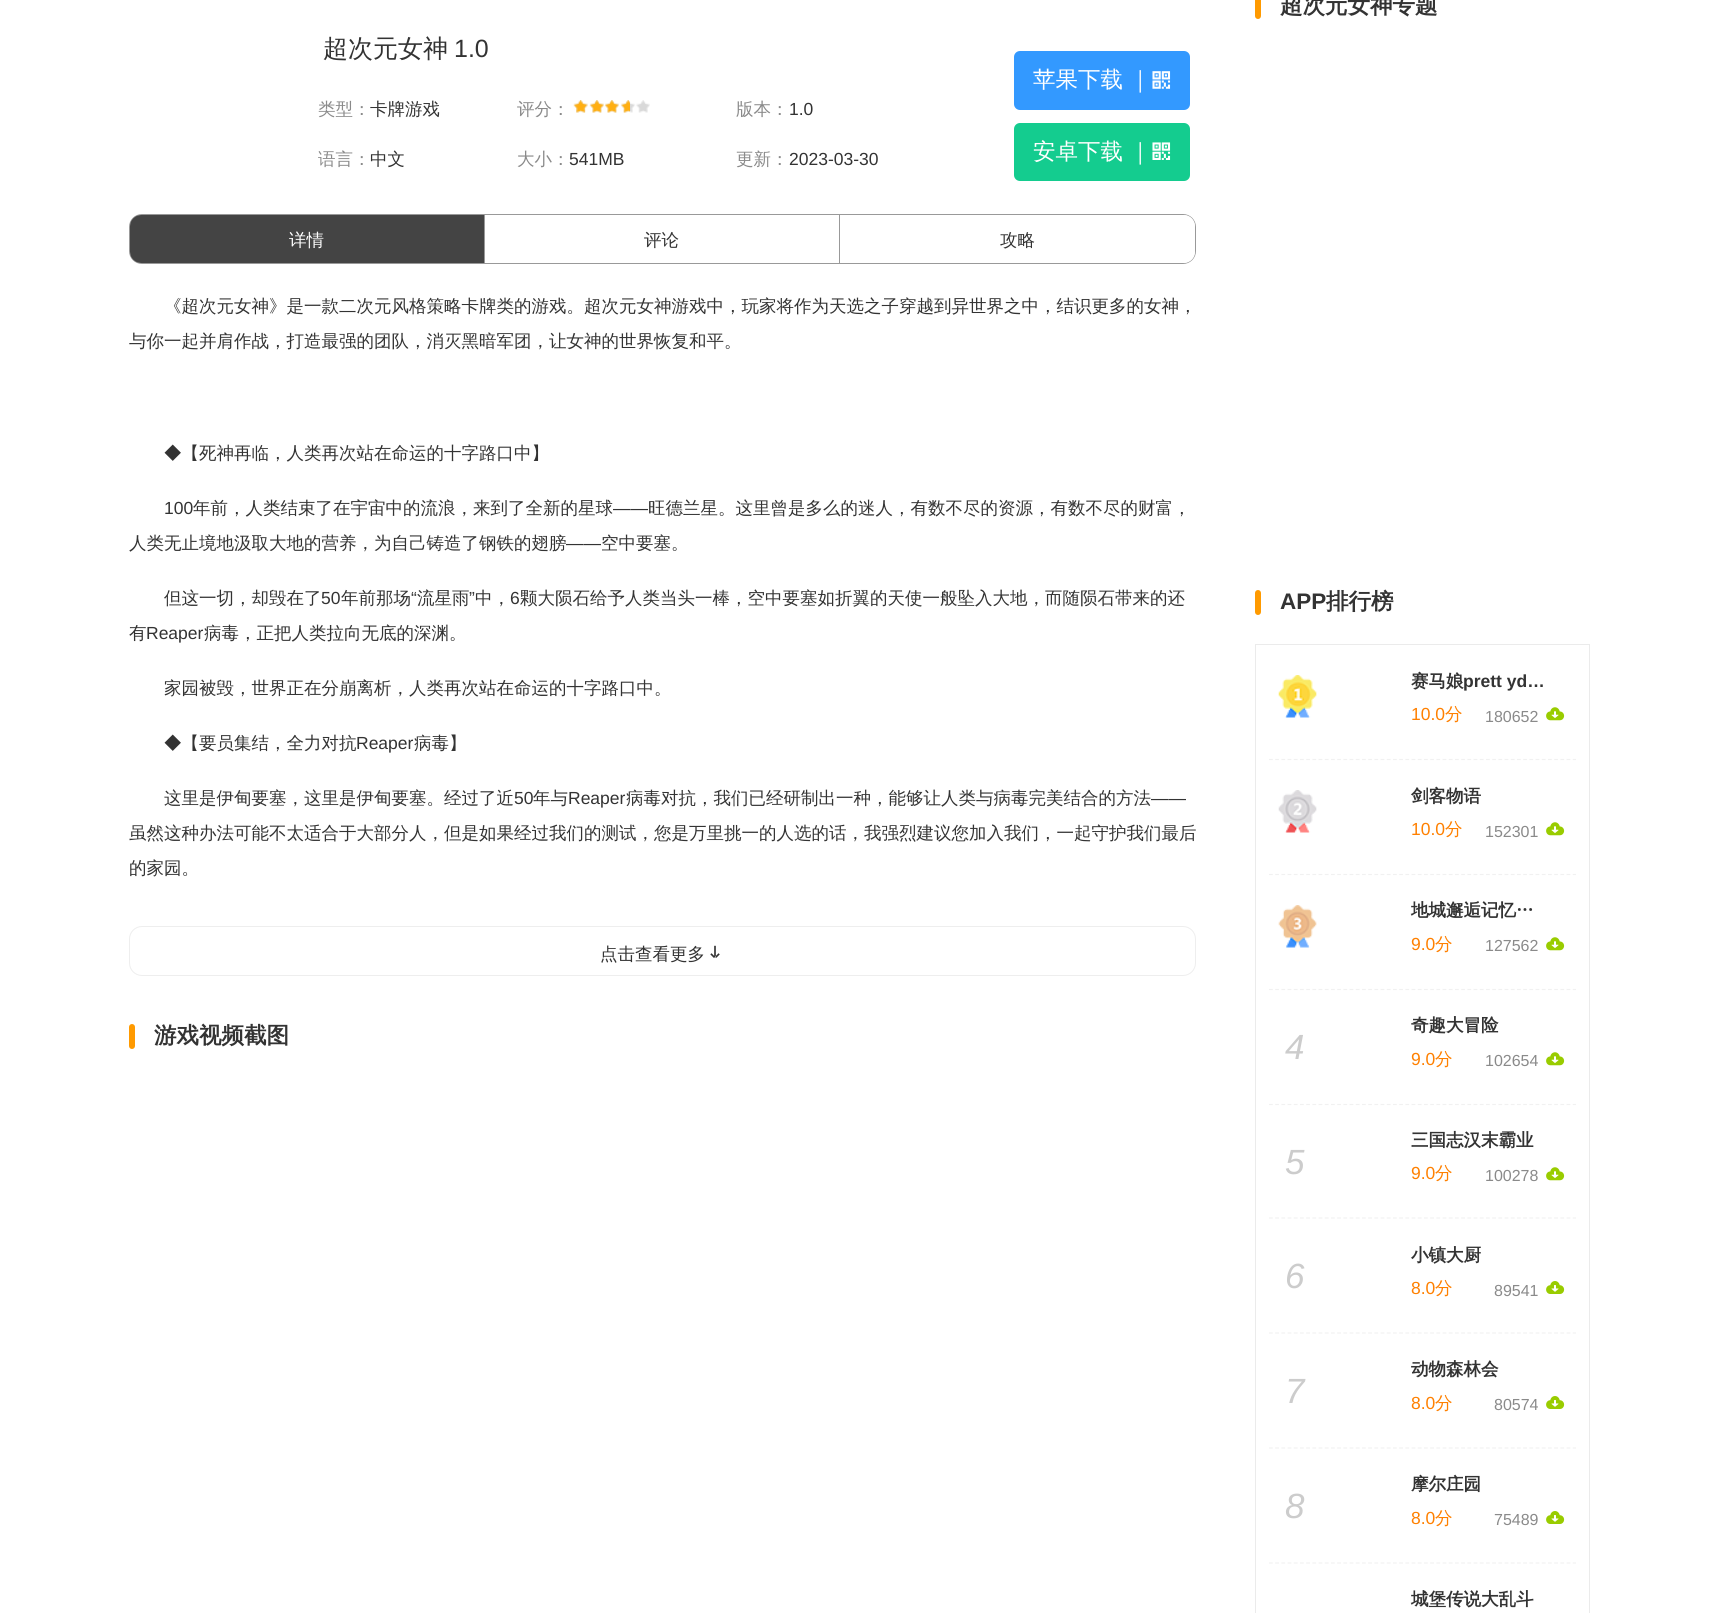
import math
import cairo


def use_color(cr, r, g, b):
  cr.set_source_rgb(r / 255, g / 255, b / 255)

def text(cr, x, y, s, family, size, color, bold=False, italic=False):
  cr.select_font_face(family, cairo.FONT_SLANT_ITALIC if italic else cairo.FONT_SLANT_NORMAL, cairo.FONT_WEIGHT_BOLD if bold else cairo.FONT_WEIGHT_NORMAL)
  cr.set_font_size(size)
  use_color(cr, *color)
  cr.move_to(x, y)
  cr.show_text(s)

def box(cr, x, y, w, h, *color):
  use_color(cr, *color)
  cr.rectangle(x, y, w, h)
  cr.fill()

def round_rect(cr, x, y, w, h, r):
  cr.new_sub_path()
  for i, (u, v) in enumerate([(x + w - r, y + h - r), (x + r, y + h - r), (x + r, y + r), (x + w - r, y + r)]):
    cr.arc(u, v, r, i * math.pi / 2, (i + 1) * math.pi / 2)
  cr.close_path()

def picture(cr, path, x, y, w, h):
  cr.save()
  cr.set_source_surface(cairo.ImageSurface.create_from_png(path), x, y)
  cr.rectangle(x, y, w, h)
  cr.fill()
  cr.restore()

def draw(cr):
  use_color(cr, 255, 255, 255)
  cr.paint()
  picture(cr, "img_01.png", 574, 100, 76, 13)
  picture(cr, "img_02.png", 573, 100, 57, 13)
  use_color(cr, 51, 153, 255)
  round_rect(cr, 1014, 51, 176, 59, 6)
  cr.fill()
  picture(cr, "img_03.png", 1152, 71, 19, 18)
  use_color(cr, 20, 204, 143)
  round_rect(cr, 1014, 123, 176, 58, 6)
  cr.fill()
  picture(cr, "img_04.png", 1152, 142, 19, 18)
  round_rect(cr, 129.5, 214.5, 1066, 49, 12.5)
  use_color(cr, 153, 153, 153)
  cr.set_line_width(1)
  cr.stroke()
  box(cr, 484, 215, 1, 48, 153, 153, 153)
  use_color(cr, 68, 68, 68)
  cr.new_path()
  cr.move_to(141, 215)
  cr.line_to(484, 215)
  cr.line_to(484, 263)
  cr.line_to(141, 263)
  cr.curve_to(135, 263, 130, 258, 130, 252)
  cr.line_to(130, 226)
  cr.curve_to(130, 220, 135, 215, 141, 215)
  cr.close_path()
  cr.fill()
  box(cr, 839, 215, 1, 48, 153, 153, 153)
  use_color(cr, 255, 255, 255)
  cr.new_path()
  cr.move_to(840, 215)
  cr.line_to(1184, 215)
  cr.curve_to(1190, 215, 1195, 220, 1195, 226)
  cr.line_to(1195, 252)
  cr.curve_to(1195, 258, 1190, 263, 1184, 263)
  cr.line_to(840, 263)
  cr.close_path()
  cr.fill()
  round_rect(cr, 129.5, 926.5, 1066, 49, 12.5)
  use_color(cr, 238, 238, 238)
  cr.stroke()
  picture(cr, "img_05.png", 710, 945, 10, 13)
  use_color(cr, 255, 154, 0)
  round_rect(cr, 129, 1024, 6, 25, 3)
  cr.fill()
  round_rect(cr, 1255, -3, 6, 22, 3)
  cr.fill()
  round_rect(cr, 1255, 590, 6, 25, 3)
  cr.fill()
  cr.rectangle(1255.5, 644.5, 334, 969)
  use_color(cr, 235, 235, 235)
  cr.stroke()
  cr.new_path()
  cr.move_to(1269, 759.5)
  cr.line_to(1576, 759.5)
  use_color(cr, 241, 241, 241)
  cr.set_line_width(1.2)
  cr.set_dash([3.75, 2.45])
  cr.stroke()
  picture(cr, "img_06.png", 1278, 675, 39, 43)
  picture(cr, "img_07.png", 1546, 707, 19, 14)
  cr.new_path()
  cr.move_to(1269, 874.5)
  cr.line_to(1576, 874.5)
  cr.stroke()
  picture(cr, "img_08.png", 1278, 790, 39, 43)
  picture(cr, "img_07.png", 1546, 822, 19, 14)
  cr.new_path()
  cr.move_to(1269, 989.5)
  cr.line_to(1576, 989.5)
  cr.stroke()
  picture(cr, "img_09.png", 1278, 905, 39, 43)
  picture(cr, "img_07.png", 1546, 937, 19, 14)
  cr.new_path()
  cr.move_to(1269, 1104.5)
  cr.line_to(1576, 1104.5)
  cr.stroke()
  picture(cr, "img_07.png", 1546, 1052, 19, 14)
  cr.new_path()
  cr.move_to(1269, 1218)
  cr.line_to(1576, 1218)
  cr.stroke()
  picture(cr, "img_07.png", 1546, 1167, 19, 14)
  cr.new_path()
  cr.move_to(1269, 1333)
  cr.line_to(1576, 1333)
  cr.stroke()
  picture(cr, "img_10.png", 1546, 1281, 19, 13)
  cr.new_path()
  cr.move_to(1269, 1448)
  cr.line_to(1576, 1448)
  cr.stroke()
  picture(cr, "img_10.png", 1546, 1396, 19, 13)
  cr.new_path()
  cr.move_to(1269, 1563)
  cr.line_to(1576, 1563)
  cr.stroke()
  picture(cr, "img_10.png", 1546, 1511, 19, 13)
  text(cr, 323, 57, "超次元女神", "WenQuanYi Zen Hei Medium", 25, (51, 51, 51))
  text(cr, 454, 57, "1.0", "Liberation Sans", 25, (51, 51, 51))
  text(cr, 318, 115, "类型：", "WenQuanYi Zen Hei Medium", 17.5, (138, 138, 138))
  text(cr, 370, 115, "卡牌游戏", "WenQuanYi Zen Hei Medium", 17.5, (51, 51, 51))
  text(cr, 517, 115, "评分：", "WenQuanYi Zen Hei Medium", 17.5, (138, 138, 138))
  text(cr, 736, 115, "版本：", "WenQuanYi Zen Hei Medium", 17.5, (138, 138, 138))
  text(cr, 789, 115, "1.0", "Liberation Sans", 17.5, (51, 51, 51))
  text(cr, 318, 165, "语言：", "WenQuanYi Zen Hei Medium", 17.5, (138, 138, 138))
  text(cr, 370, 165, "中文", "WenQuanYi Zen Hei Medium", 17.5, (51, 51, 51))
  text(cr, 517, 165, "大小：", "WenQuanYi Zen Hei Medium", 17.5, (138, 138, 138))
  text(cr, 569, 165, "541MB", "Liberation Sans", 17.5, (51, 51, 51))
  text(cr, 736, 165, "更新：", "WenQuanYi Zen Hei Medium", 17.5, (138, 138, 138))
  text(cr, 789, 165, "2023-03-30", "Liberation Sans", 17.5, (51, 51, 51))
  text(cr, 1033, 87, "苹果下载", "WenQuanYi Zen Hei Medium", 22.5, (255, 255, 255))
  text(cr, 1129, 87, "｜", "WenQuanYi Zen Hei Medium", 22.5, (255, 255, 255))
  text(cr, 1033, 159, "安卓下载", "WenQuanYi Zen Hei Medium", 22.5, (255, 255, 255))
  text(cr, 1129, 159, "｜", "WenQuanYi Zen Hei Medium", 22.5, (255, 255, 255))
  text(cr, 289, 246, "详情", "WenQuanYi Zen Hei Medium", 17.5, (255, 255, 255))
  text(cr, 644, 246, "评论", "WenQuanYi Zen Hei Medium", 17.5, (51, 51, 51))
  text(cr, 1000, 246, "攻略", "WenQuanYi Zen Hei Medium", 17.5, (51, 51, 51))
  text(cr, 164, 312, "《超次元女神》是一款二次元风格策略卡牌类的游戏。超次元女神游戏中，玩家将作为天选之子穿越到异世界之中，结识更多的女神，", "WenQuanYi Zen Hei Medium", 17.5, (51, 51, 51))
  text(cr, 129, 347, "与你一起并肩作战，打造最强的团队，消灭黑暗军团，让女神的世界恢复和平。", "WenQuanYi Zen Hei Medium", 17.5, (51, 51, 51))
  text(cr, 164, 459, "◆【死神再临，人类再次站在命运的十字路口中】", "WenQuanYi Zen Hei Medium", 17.5, (51, 51, 51))
  text(cr, 164, 514, "100", "Liberation Sans", 17.5, (51, 51, 51))
  text(cr, 193, 514, "年前，人类结束了在宇宙中的流浪，来到了全新的星球", "WenQuanYi Zen Hei Medium", 17.5, (51, 51, 51))
  text(cr, 613, 514, "——", "Liberation Sans", 17.5, (51, 51, 51))
  text(cr, 648, 514, "旺德兰星。这里曾是多么的迷人，有数不尽的资源，有数不尽的财富，", "WenQuanYi Zen Hei Medium", 17.5, (51, 51, 51))
  text(cr, 129, 549, "人类无止境地汲取大地的营养，为自己铸造了钢铁的翅膀", "WenQuanYi Zen Hei Medium", 17.5, (51, 51, 51))
  text(cr, 566, 549, "——", "Liberation Sans", 17.5, (51, 51, 51))
  text(cr, 601, 549, "空中要塞。", "WenQuanYi Zen Hei Medium", 17.5, (51, 51, 51))
  text(cr, 164, 604, "但这一切，却毁在了", "WenQuanYi Zen Hei Medium", 17.5, (51, 51, 51))
  text(cr, 321, 604, "50", "Liberation Sans", 17.5, (51, 51, 51))
  text(cr, 341, 604, "年前那场", "WenQuanYi Zen Hei Medium", 17.5, (51, 51, 51))
  text(cr, 411, 604, "“", "Liberation Sans", 17.5, (51, 51, 51))
  text(cr, 417, 604, "流星雨", "WenQuanYi Zen Hei Medium", 17.5, (51, 51, 51))
  text(cr, 469, 604, "”", "Liberation Sans", 17.5, (51, 51, 51))
  text(cr, 475, 604, "中，", "WenQuanYi Zen Hei Medium", 17.5, (51, 51, 51))
  text(cr, 510, 604, "6", "Liberation Sans", 17.5, (51, 51, 51))
  text(cr, 520, 604, "颗大陨石给予人类当头一棒，空中要塞如折翼的天使一般坠入大地，而随陨石带来的还", "WenQuanYi Zen Hei Medium", 17.5, (51, 51, 51))
  text(cr, 129, 639, "有", "WenQuanYi Zen Hei Medium", 17.5, (51, 51, 51))
  text(cr, 146, 639, "Reaper", "Liberation Sans", 17.5, (51, 51, 51))
  text(cr, 204, 639, "病毒，正把人类拉向无底的深渊。", "WenQuanYi Zen Hei Medium", 17.5, (51, 51, 51))
  text(cr, 164, 694, "家园被毁，世界正在分崩离析，人类再次站在命运的十字路口中。", "WenQuanYi Zen Hei Medium", 17.5, (51, 51, 51))
  text(cr, 164, 749, "◆【要员集结，全力对抗", "WenQuanYi Zen Hei Medium", 17.5, (51, 51, 51))
  text(cr, 356, 749, "Reaper", "Liberation Sans", 17.5, (51, 51, 51))
  text(cr, 414, 749, "病毒】", "WenQuanYi Zen Hei Medium", 17.5, (51, 51, 51))
  text(cr, 164, 804, "这里是伊甸要塞，这里是伊甸要塞。经过了近", "WenQuanYi Zen Hei Medium", 17.5, (51, 51, 51))
  text(cr, 514, 804, "50", "Liberation Sans", 17.5, (51, 51, 51))
  text(cr, 533, 804, "年与", "WenQuanYi Zen Hei Medium", 17.5, (51, 51, 51))
  text(cr, 568, 804, "Reaper", "Liberation Sans", 17.5, (51, 51, 51))
  text(cr, 626, 804, "病毒对抗，我们已经研制出一种，能够让人类与病毒完美结合的方法", "WenQuanYi Zen Hei Medium", 17.5, (51, 51, 51))
  text(cr, 1151, 804, "——", "Liberation Sans", 17.5, (51, 51, 51))
  text(cr, 129, 839, "虽然这种办法可能不太适合于大部分人，但是如果经过我们的测试，您是万里挑一的人选的话，我强烈建议您加入我们，一起守护我们最后", "WenQuanYi Zen Hei Medium", 17.5, (51, 51, 51))
  text(cr, 129, 874, "的家园。", "WenQuanYi Zen Hei Medium", 17.5, (51, 51, 51))
  text(cr, 600, 960, "点击查看更多", "WenQuanYi Zen Hei Medium", 17.5, (51, 51, 51))
  text(cr, 154, 1043, "游戏视频截图", "WenQuanYi Zen Hei", 22.5, (51, 51, 51), bold=True)
  text(cr, 1280, 13, "超次元女神专题", "WenQuanYi Zen Hei", 22.5, (51, 51, 51), bold=True)
  text(cr, 1280, 609, "APP", "Liberation Sans", 22.5, (51, 51, 51), bold=True)
  text(cr, 1326, 609, "排行榜", "WenQuanYi Zen Hei", 22.5, (51, 51, 51), bold=True)
  text(cr, 1411, 687, "赛马娘", "WenQuanYi Zen Hei", 17.5, (51, 51, 51), bold=True)
  text(cr, 1463, 687, "prett yd…", "Liberation Sans", 17.5, (51, 51, 51), bold=True)
  text(cr, 1411, 720, "10.0", "Liberation Sans", 17.5, (255, 128, 0))
  text(cr, 1445, 720, "分", "WenQuanYi Zen Hei Medium", 17.5, (255, 128, 0))
  text(cr, 1485, 722, "180652", "Liberation Sans", 16, (138, 138, 138))
  text(cr, 1411, 802, "剑客物语", "WenQuanYi Zen Hei", 17.5, (51, 51, 51), bold=True)
  text(cr, 1411, 835, "10.0", "Liberation Sans", 17.5, (255, 128, 0))
  text(cr, 1445, 835, "分", "WenQuanYi Zen Hei Medium", 17.5, (255, 128, 0))
  text(cr, 1485, 837, "152301", "Liberation Sans", 16, (138, 138, 138))
  text(cr, 1411, 916, "地城邂逅记忆…", "WenQuanYi Zen Hei", 17.5, (51, 51, 51), bold=True)
  text(cr, 1411, 950, "9.0", "Liberation Sans", 17.5, (255, 128, 0))
  text(cr, 1435, 950, "分", "WenQuanYi Zen Hei Medium", 17.5, (255, 128, 0))
  text(cr, 1485, 951, "127562", "Liberation Sans", 16, (138, 138, 138))
  text(cr, 1285, 1059, "4", "Liberation Sans", 35, (204, 204, 204), italic=True)
  text(cr, 1411, 1031, "奇趣大冒险", "WenQuanYi Zen Hei", 17.5, (51, 51, 51), bold=True)
  text(cr, 1411, 1065, "9.0", "Liberation Sans", 17.5, (255, 128, 0))
  text(cr, 1435, 1065, "分", "WenQuanYi Zen Hei Medium", 17.5, (255, 128, 0))
  text(cr, 1485, 1066, "102654", "Liberation Sans", 16, (138, 138, 138))
  text(cr, 1285, 1174, "5", "Liberation Sans", 35, (204, 204, 204), italic=True)
  text(cr, 1411, 1146, "三国志汉末霸业", "WenQuanYi Zen Hei", 17.5, (51, 51, 51), bold=True)
  text(cr, 1411, 1179, "9.0", "Liberation Sans", 17.5, (255, 128, 0))
  text(cr, 1435, 1179, "分", "WenQuanYi Zen Hei Medium", 17.5, (255, 128, 0))
  text(cr, 1485, 1181, "100278", "Liberation Sans", 16, (138, 138, 138))
  text(cr, 1285, 1288, "6", "Liberation Sans", 35, (204, 204, 204), italic=True)
  text(cr, 1411, 1261, "小镇大厨", "WenQuanYi Zen Hei", 17.5, (51, 51, 51), bold=True)
  text(cr, 1411, 1294, "8.0", "Liberation Sans", 17.5, (255, 128, 0))
  text(cr, 1435, 1294, "分", "WenQuanYi Zen Hei Medium", 17.5, (255, 128, 0))
  text(cr, 1494, 1296, "89541", "Liberation Sans", 16, (138, 138, 138))
  text(cr, 1285, 1403, "7", "Liberation Sans", 35, (204, 204, 204), italic=True)
  text(cr, 1411, 1375, "动物森林会", "WenQuanYi Zen Hei", 17.5, (51, 51, 51), bold=True)
  text(cr, 1411, 1409, "8.0", "Liberation Sans", 17.5, (255, 128, 0))
  text(cr, 1435, 1409, "分", "WenQuanYi Zen Hei Medium", 17.5, (255, 128, 0))
  text(cr, 1494, 1410, "80574", "Liberation Sans", 16, (138, 138, 138))
  text(cr, 1285, 1518, "8", "Liberation Sans", 35, (204, 204, 204), italic=True)
  text(cr, 1411, 1490, "摩尔庄园", "WenQuanYi Zen Hei", 17.5, (51, 51, 51), bold=True)
  text(cr, 1411, 1524, "8.0", "Liberation Sans", 17.5, (255, 128, 0))
  text(cr, 1435, 1524, "分", "WenQuanYi Zen Hei Medium", 17.5, (255, 128, 0))
  text(cr, 1494, 1525, "75489", "Liberation Sans", 16, (138, 138, 138))
  text(cr, 1411, 1605, "城堡传说大乱斗", "WenQuanYi Zen Hei", 17.5, (51, 51, 51), bold=True)


surface = cairo.ImageSurface(cairo.FORMAT_RGB24, 1720, 1613)
cr = cairo.Context(surface)
options = cairo.FontOptions()
options.set_hint_metrics(cairo.HINT_METRICS_OFF)
options.set_hint_style(cairo.HINT_STYLE_NONE)
cr.set_font_options(options)
cr.set_miter_limit(4)
draw(cr)
surface.write_to_png("out.png")
